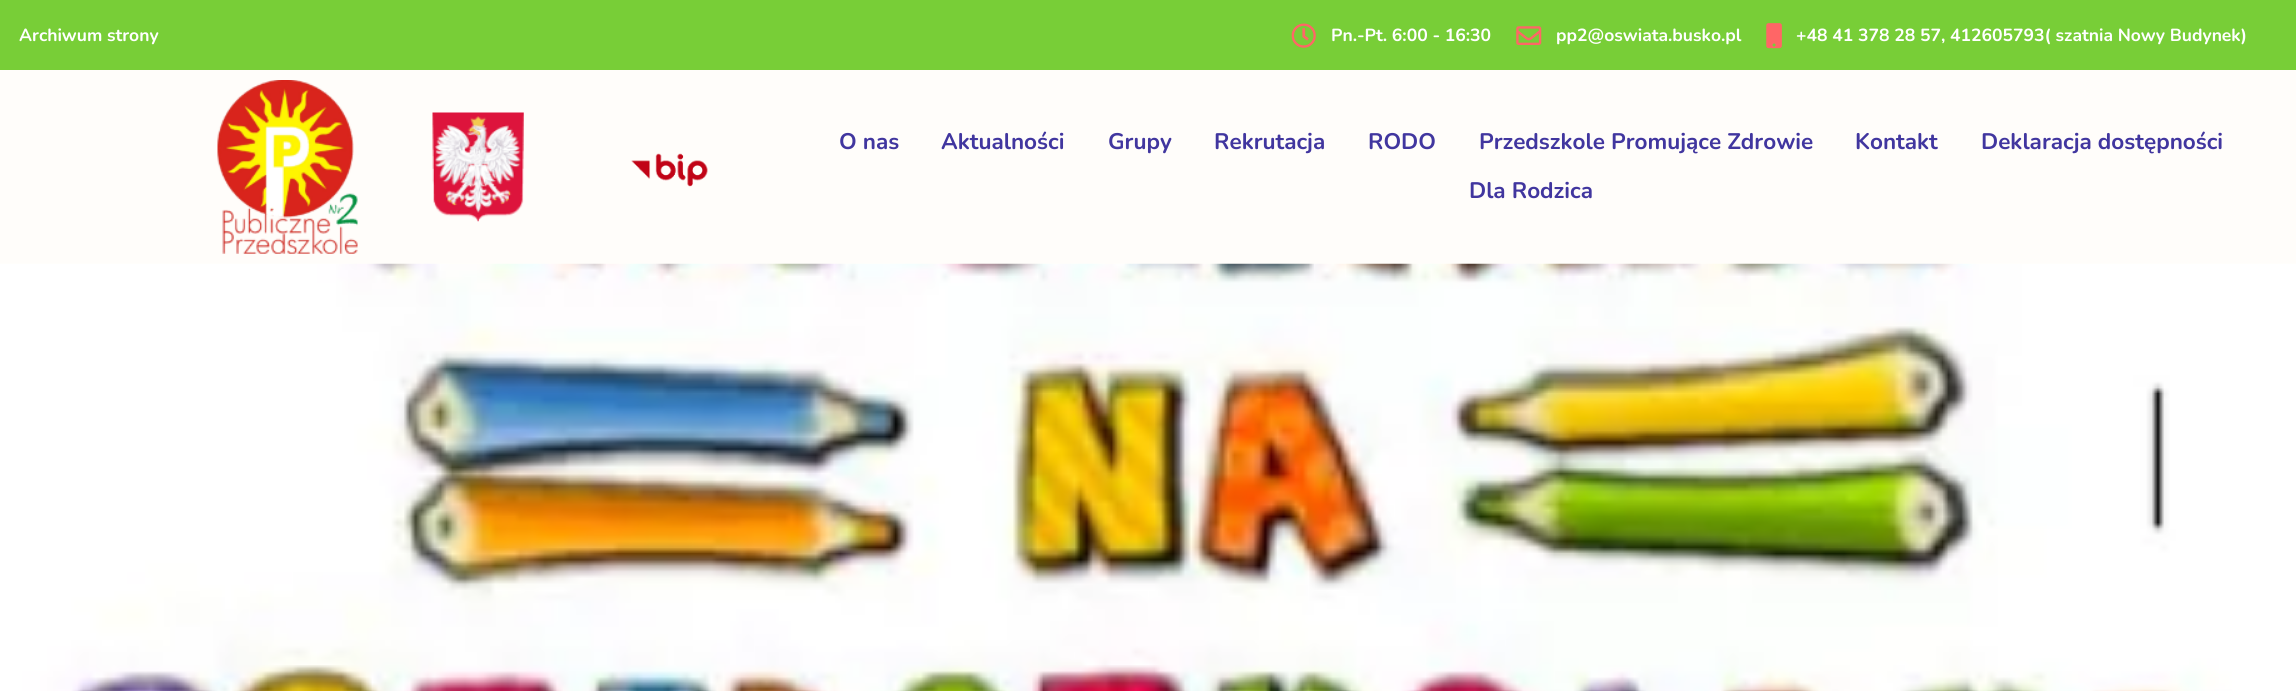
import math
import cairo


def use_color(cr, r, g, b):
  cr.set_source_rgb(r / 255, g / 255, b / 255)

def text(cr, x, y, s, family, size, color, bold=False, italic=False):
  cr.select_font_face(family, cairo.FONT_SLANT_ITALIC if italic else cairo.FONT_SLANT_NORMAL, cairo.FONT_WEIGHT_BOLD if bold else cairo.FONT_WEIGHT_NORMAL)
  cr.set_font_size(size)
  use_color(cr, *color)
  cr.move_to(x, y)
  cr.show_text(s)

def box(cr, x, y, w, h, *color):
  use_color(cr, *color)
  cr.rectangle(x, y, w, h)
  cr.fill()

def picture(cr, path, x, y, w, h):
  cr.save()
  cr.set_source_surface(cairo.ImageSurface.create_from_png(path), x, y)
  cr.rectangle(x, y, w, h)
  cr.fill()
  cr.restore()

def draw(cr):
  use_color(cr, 255, 253, 250)
  cr.paint()
  box(cr, 0, 0, 2296, 70, 120, 206, 55)
  picture(cr, "img_01.png", 1291, 23, 25, 25)
  picture(cr, "img_02.png", 1516, 26, 26, 19)
  picture(cr, "img_03.png", 1766, 23, 16, 26)
  picture(cr, "img_04.png", 217, 80, 141, 174)
  picture(cr, "img_05.png", 432, 112, 92, 110)
  picture(cr, "img_06.png", 631, 153, 77, 34)
  picture(cr, "img_07.png", 0, 263, 2296, 428)
  text(cr, 19, 41, "Archiwum strony", "Nunito", 17.5, (255, 255, 255), bold=True)
  text(cr, 1331, 41, "Pn.-Pt. 6:00 - 16:30", "Nunito", 17.5, (255, 255, 255), bold=True)
  text(cr, 1556, 41, "pp2@oswiata.busko.pl", "Nunito", 17.5, (255, 255, 255), bold=True)
  text(cr, 1796, 41, "+48 41 378 28 57, 412605793( szatnia Nowy Budynek)", "Nunito", 17.5, (255, 255, 255), bold=True)
  text(cr, 839, 149, "O nas", "Nunito", 22.5, (65, 54, 159), bold=True)
  text(cr, 941, 149, "Aktualności", "Nunito", 22.5, (65, 54, 159), bold=True)
  text(cr, 1108, 149, "Grupy", "Nunito", 22.5, (65, 54, 159), bold=True)
  text(cr, 1214, 149, "Rekrutacja", "Nunito", 22.5, (65, 54, 159), bold=True)
  text(cr, 1368, 149, "RODO", "Nunito", 22.5, (65, 54, 159), bold=True)
  text(cr, 1479, 149, "Przedszkole Promujące Zdrowie", "Nunito", 22.5, (65, 54, 159), bold=True)
  text(cr, 1855, 149, "Kontakt", "Nunito", 22.5, (65, 54, 159), bold=True)
  text(cr, 1981, 149, "Deklaracja dostępności", "Nunito", 22.5, (65, 54, 159), bold=True)
  text(cr, 1469, 198, "Dla Rodzica", "Nunito", 22.5, (65, 54, 159), bold=True)


surface = cairo.ImageSurface(cairo.FORMAT_RGB24, 2296, 691)
cr = cairo.Context(surface)
options = cairo.FontOptions()
options.set_hint_metrics(cairo.HINT_METRICS_OFF)
options.set_hint_style(cairo.HINT_STYLE_NONE)
cr.set_font_options(options)
cr.set_miter_limit(4)
draw(cr)
surface.write_to_png("out.png")
